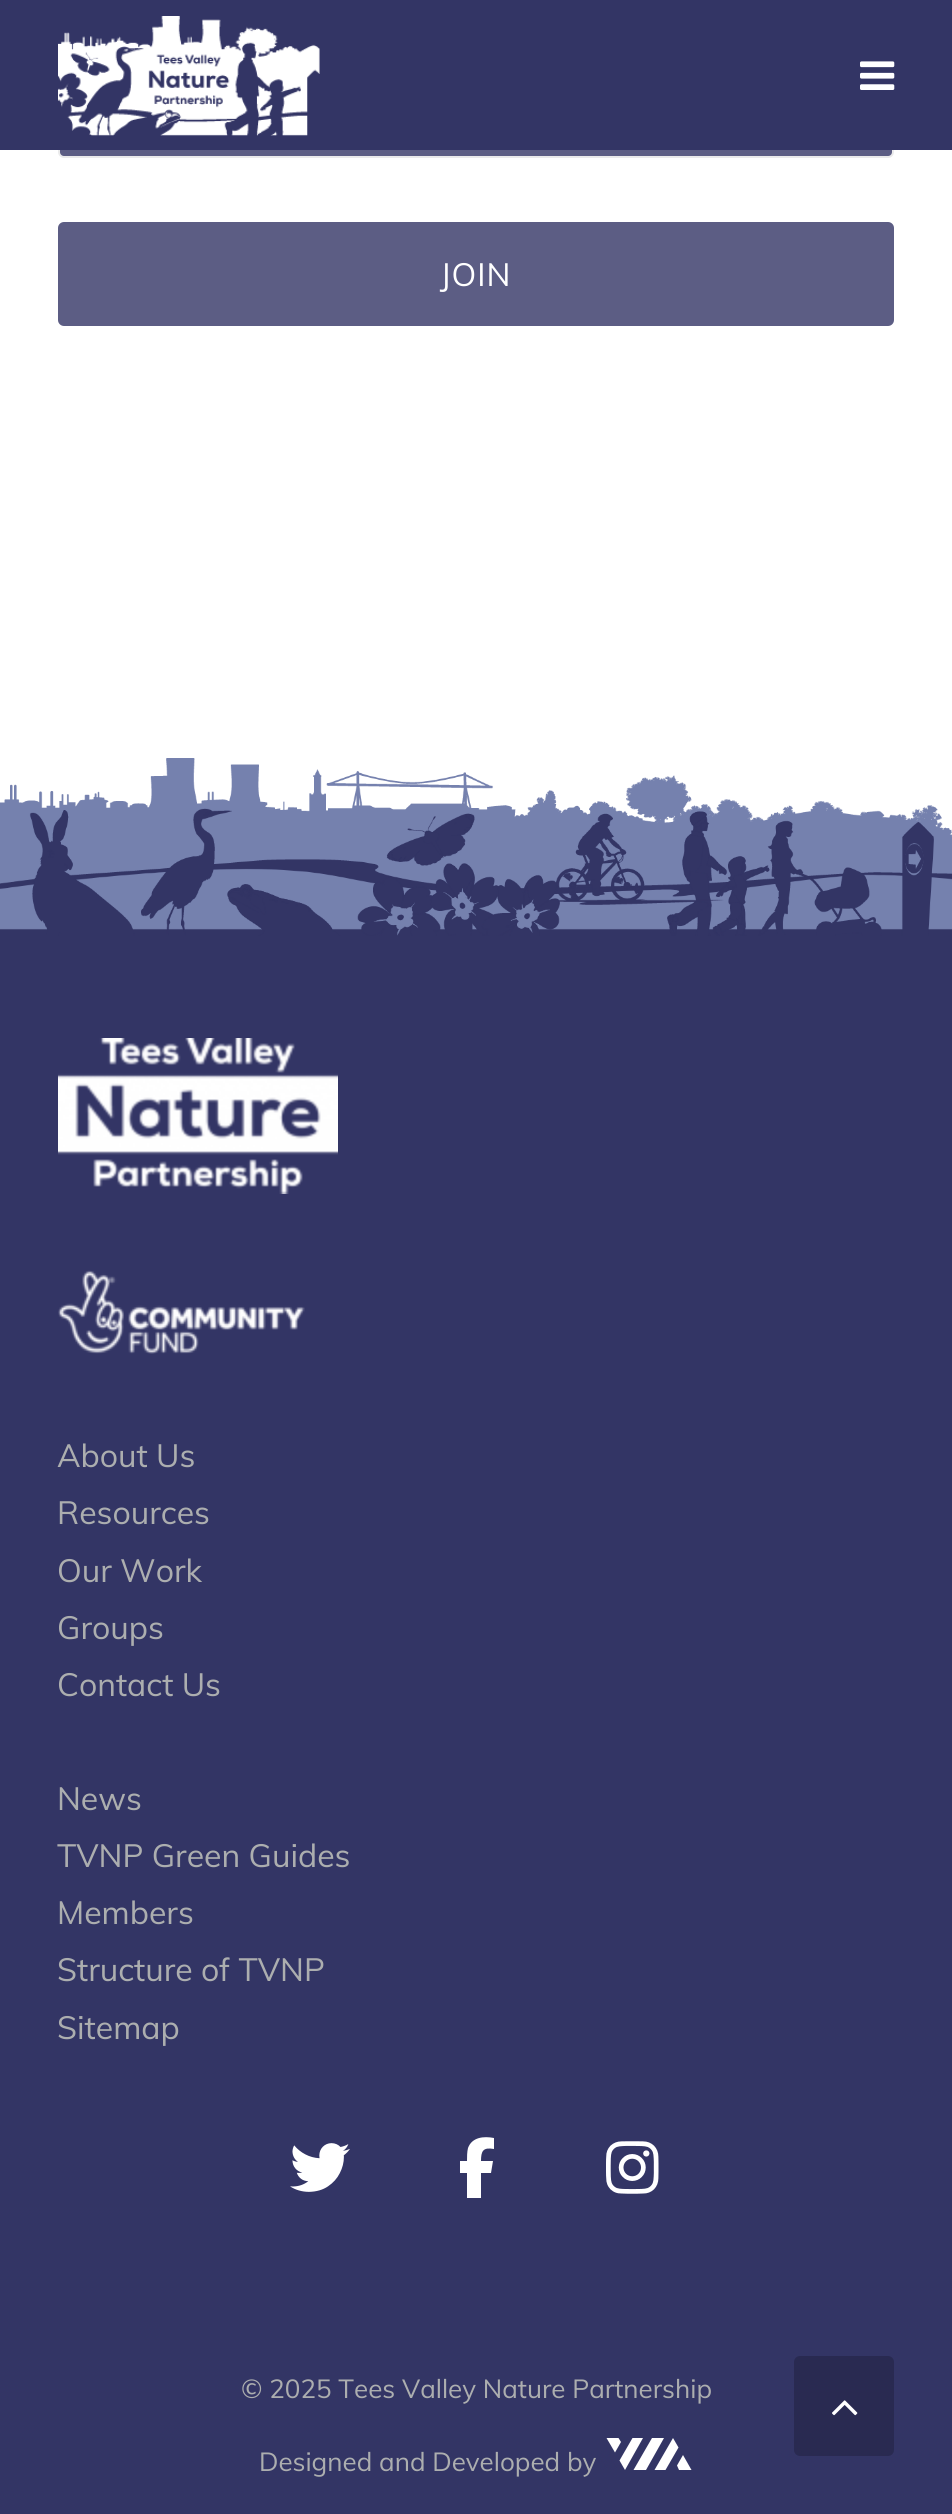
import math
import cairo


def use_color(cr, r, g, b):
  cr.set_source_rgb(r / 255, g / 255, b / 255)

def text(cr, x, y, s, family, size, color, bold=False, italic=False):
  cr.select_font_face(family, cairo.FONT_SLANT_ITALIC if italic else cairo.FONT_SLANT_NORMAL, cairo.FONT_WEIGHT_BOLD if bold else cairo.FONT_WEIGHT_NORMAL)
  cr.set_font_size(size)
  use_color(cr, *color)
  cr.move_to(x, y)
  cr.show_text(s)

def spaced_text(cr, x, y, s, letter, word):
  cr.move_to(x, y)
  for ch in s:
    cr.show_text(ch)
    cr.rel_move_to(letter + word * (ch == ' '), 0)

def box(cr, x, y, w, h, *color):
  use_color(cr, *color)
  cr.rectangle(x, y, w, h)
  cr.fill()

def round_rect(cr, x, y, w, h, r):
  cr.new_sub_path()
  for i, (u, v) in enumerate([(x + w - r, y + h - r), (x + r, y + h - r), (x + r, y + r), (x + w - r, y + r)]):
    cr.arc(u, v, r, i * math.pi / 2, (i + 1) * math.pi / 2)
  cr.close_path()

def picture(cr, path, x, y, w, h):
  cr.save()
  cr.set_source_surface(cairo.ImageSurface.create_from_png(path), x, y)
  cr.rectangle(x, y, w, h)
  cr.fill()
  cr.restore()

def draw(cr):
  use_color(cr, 255, 255, 255)
  cr.paint()
  use_color(cr, 92, 93, 132)
  round_rect(cr, 59, 71, 834, 86, 5)
  cr.fill_preserve()
  use_color(cr, 234, 234, 235)
  cr.stroke()
  box(cr, 0, 0, 952, 150, 51, 53, 101)
  picture(cr, "img_01.png", 58, 16, 262, 120)
  picture(cr, "img_02.png", 860, 61, 35, 29)
  use_color(cr, 92, 93, 132)
  round_rect(cr, 58, 222, 836, 104, 6)
  cr.fill()
  box(cr, 0, 936, 952, 1578, 51, 53, 101)
  picture(cr, "img_03.png", 0, 758, 952, 178)
  picture(cr, "img_04.png", 58, 1038, 280, 156)
  picture(cr, "img_05.png", 58, 1270, 247, 84)
  picture(cr, "img_06.png", 290, 2143, 60, 49)
  use_color(cr, 255, 255, 255)
  cr.new_path()
  cr.move_to(467, 2173)
  cr.line_to(467, 2198)
  cr.line_to(467, 2173)
  cr.line_to(467, 2198)
  cr.line_to(481, 2198)
  cr.line_to(481, 2173)
  cr.line_to(491, 2173)
  cr.line_to(493, 2161)
  cr.line_to(481, 2161)
  cr.curve_to(481, 2151, 483, 2147, 494, 2149)
  cr.line_to(494, 2138)
  cr.curve_to(484, 2136, 472, 2137, 468, 2148)
  cr.curve_to(467, 2152, 467, 2157, 467, 2161)
  cr.line_to(460, 2161)
  cr.line_to(460, 2173)
  cr.close_path()
  cr.fill()
  picture(cr, "img_07.png", 606, 2141, 53, 53)
  cr.set_fill_rule(cairo.FILL_RULE_EVEN_ODD)
  cr.new_path()
  cr.move_to(606.5, 2438)
  cr.line_to(615, 2452.5)
  cr.line_to(621, 2442)
  cr.line_to(618.5, 2438)
  cr.close_path()
  cr.fill()
  cr.new_path()
  cr.move_to(632.5, 2438)
  cr.line_to(619.5, 2460.5)
  cr.line_to(625, 2470)
  cr.line_to(643, 2438)
  cr.close_path()
  cr.fill()
  cr.new_path()
  cr.move_to(677, 2465.5)
  cr.line_to(679, 2470)
  cr.line_to(691.5, 2470)
  cr.line_to(683, 2455)
  cr.close_path()
  cr.fill()
  cr.new_path()
  cr.move_to(673, 2438)
  cr.line_to(654.5, 2470)
  cr.line_to(665.5, 2470)
  cr.line_to(678.5, 2447.5)
  cr.close_path()
  cr.fill()
  cr.new_path()
  cr.move_to(652, 2438)
  cr.line_to(633.5, 2470)
  cr.line_to(646, 2470)
  cr.line_to(664, 2438)
  cr.close_path()
  cr.fill()
  use_color(cr, 41, 42, 81)
  round_rect(cr, 794, 2356, 100, 100, 6)
  cr.fill()
  picture(cr, "img_08.png", 832, 2400, 26, 16)
  cr.select_font_face("Muli")
  cr.set_font_size(32)
  use_color(cr, 255, 255, 255)
  spaced_text(cr, 440, 286, "JOIN", 1, 0)
  text(cr, 57, 1467, "About Us", "Muli", 32, (172, 174, 175))
  text(cr, 57, 1524, "Resources", "Muli", 32, (172, 174, 175))
  text(cr, 57, 1582, "Our Work", "Muli", 32, (172, 174, 175))
  text(cr, 57, 1639, "Groups", "Muli", 32, (172, 174, 175))
  text(cr, 57, 1696, "Contact Us", "Muli", 32, (172, 174, 175))
  text(cr, 57, 1810, "News", "Muli", 32, (172, 174, 175))
  text(cr, 57, 1867, "TVNP Green Guides", "Muli", 32, (172, 174, 175))
  text(cr, 57, 1924, "Members", "Muli", 32, (172, 174, 175))
  text(cr, 57, 1981, "Structure of TVNP", "Muli", 32, (172, 174, 175))
  text(cr, 57, 2039, "Sitemap", "Muli", 32, (172, 174, 175))
  text(cr, 241, 2398, "© 2025 Tees Valley Nature Partnership", "Muli", 26, (172, 174, 175))
  text(cr, 259, 2471, "Designed and Developed by", "Muli", 26, (172, 174, 175))


surface = cairo.ImageSurface(cairo.FORMAT_RGB24, 952, 2514)
cr = cairo.Context(surface)
options = cairo.FontOptions()
options.set_hint_metrics(cairo.HINT_METRICS_OFF)
options.set_hint_style(cairo.HINT_STYLE_NONE)
cr.set_font_options(options)
cr.set_miter_limit(4)
draw(cr)
surface.write_to_png("out.png")
